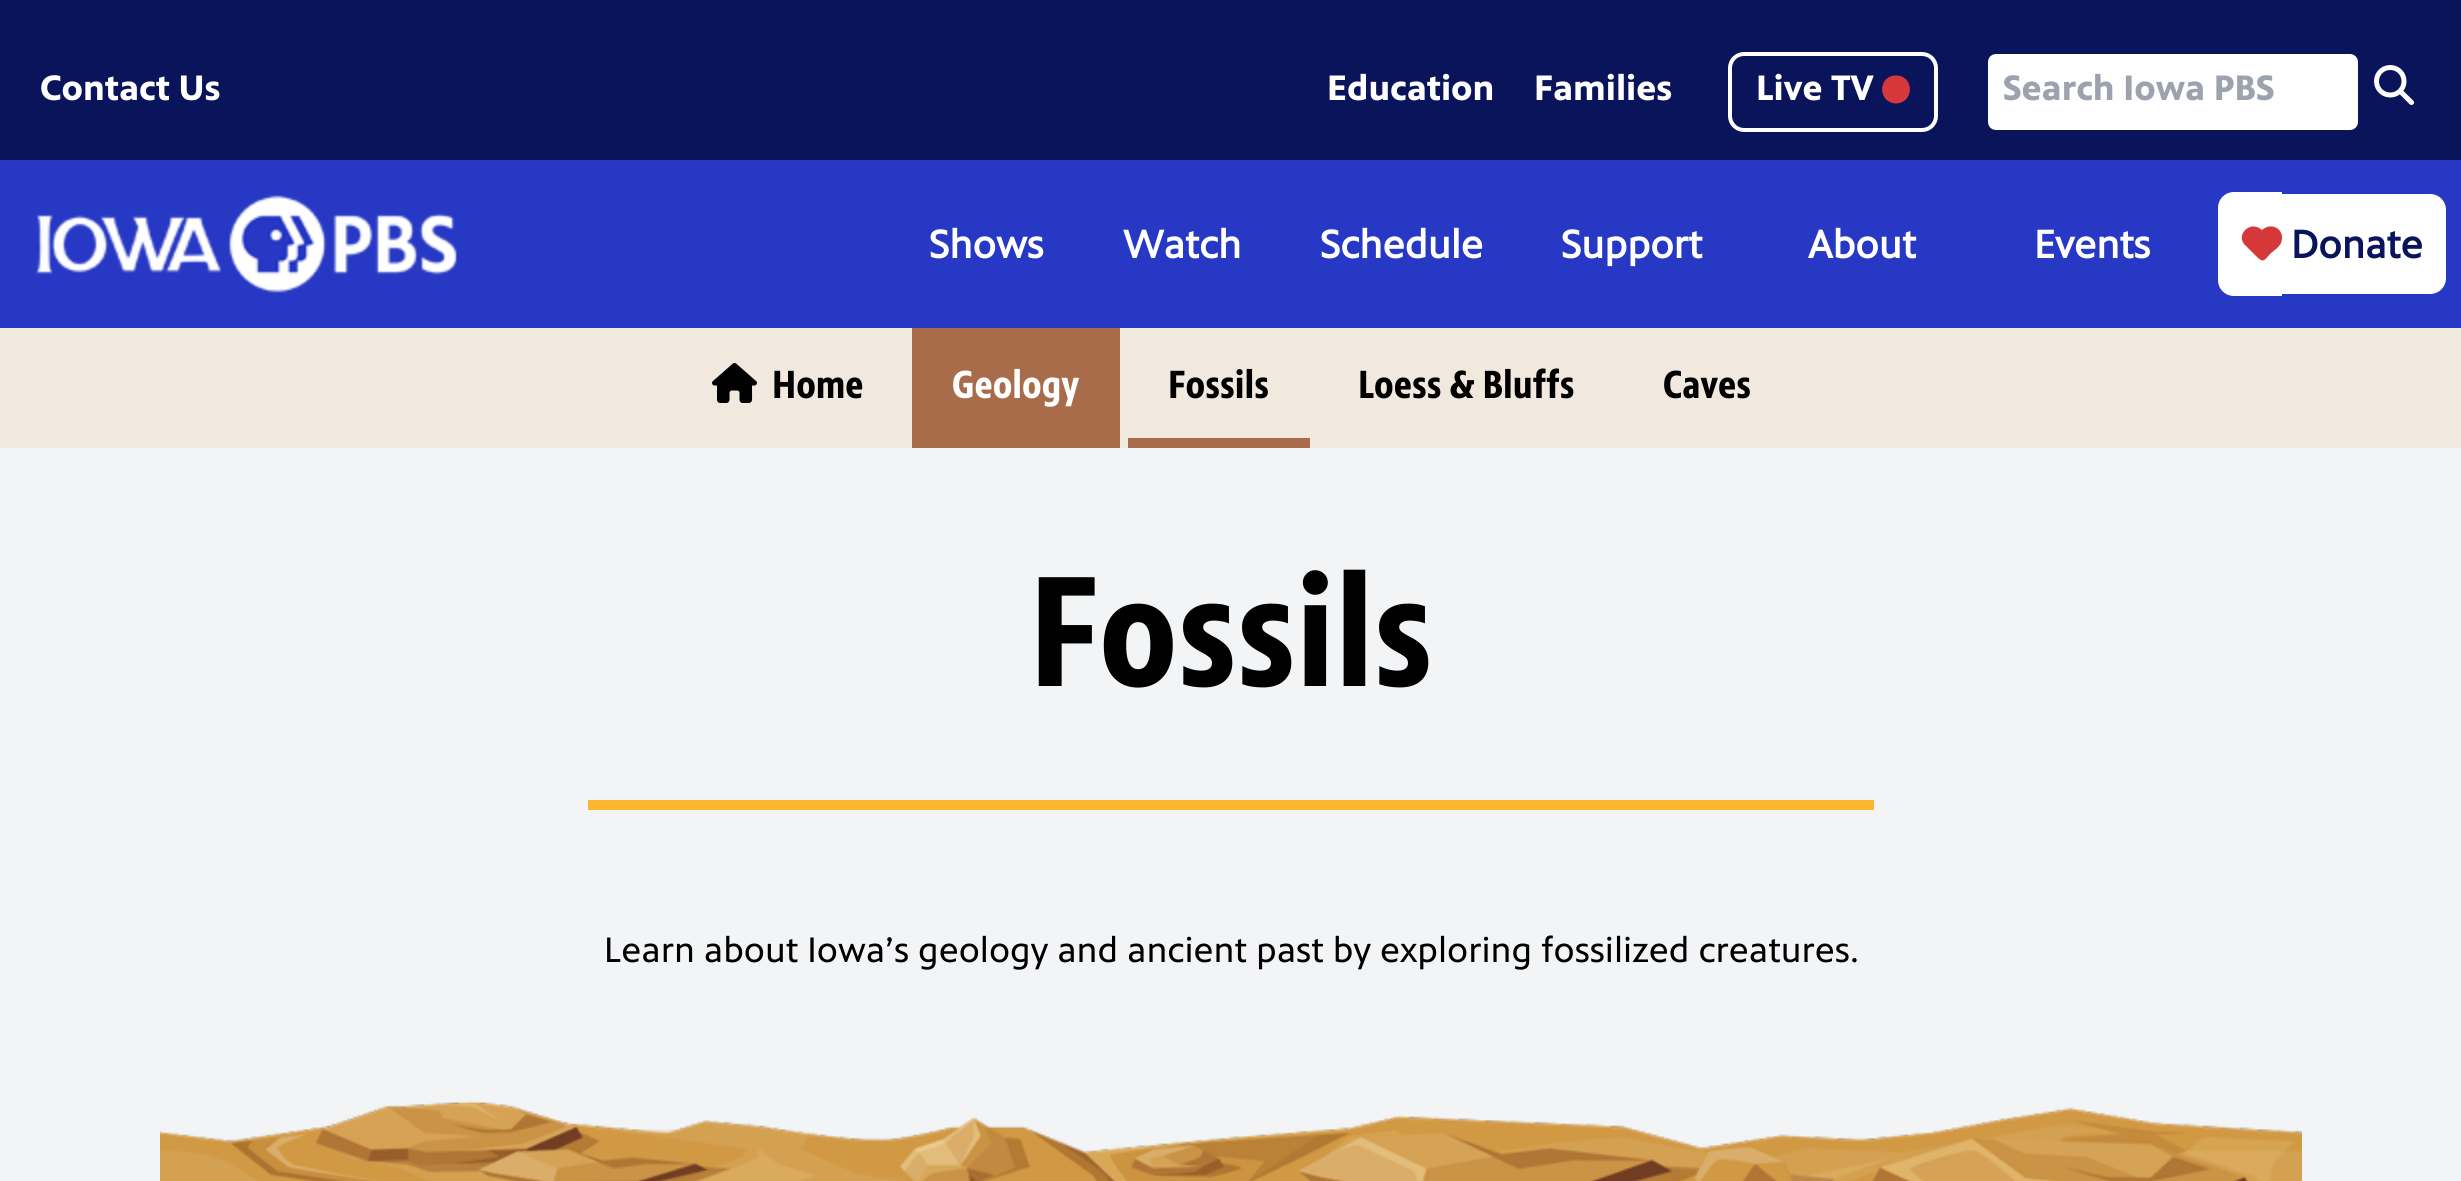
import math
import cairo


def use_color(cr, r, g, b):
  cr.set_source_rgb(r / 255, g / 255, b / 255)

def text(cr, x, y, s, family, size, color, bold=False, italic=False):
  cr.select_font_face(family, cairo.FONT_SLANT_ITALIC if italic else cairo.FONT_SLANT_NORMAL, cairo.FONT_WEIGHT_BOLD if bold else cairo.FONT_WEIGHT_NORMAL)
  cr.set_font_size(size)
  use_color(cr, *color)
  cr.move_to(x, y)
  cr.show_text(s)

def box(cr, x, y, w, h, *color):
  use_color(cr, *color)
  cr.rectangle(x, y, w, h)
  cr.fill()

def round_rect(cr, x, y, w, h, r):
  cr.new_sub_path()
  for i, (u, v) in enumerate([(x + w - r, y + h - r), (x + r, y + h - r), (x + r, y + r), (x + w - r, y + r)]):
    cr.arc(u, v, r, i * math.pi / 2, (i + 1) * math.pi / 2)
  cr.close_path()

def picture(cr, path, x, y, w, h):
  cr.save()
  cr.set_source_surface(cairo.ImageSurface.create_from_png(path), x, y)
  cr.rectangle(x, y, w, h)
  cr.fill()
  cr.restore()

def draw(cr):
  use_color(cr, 243, 244, 246)
  cr.paint()
  box(cr, 0, 0, 2461, 160, 10, 20, 90)
  round_rect(cr, 1730, 54, 206, 76, 14)
  use_color(cr, 255, 255, 255)
  cr.set_line_width(4)
  cr.stroke()
  use_color(cr, 214, 56, 58)
  cr.new_path()
  cr.move_to(1896, 103.5)
  cr.curve_to(1914.5, 103, 1914.5, 75.5, 1896, 75.5)
  cr.curve_to(1877.5, 75.5, 1877.5, 103, 1896, 103.5)
  cr.close_path()
  cr.fill()
  use_color(cr, 255, 255, 255)
  round_rect(cr, 1988, 54, 370, 76, 8)
  cr.fill()
  picture(cr, "img_01.png", 2374, 65, 40, 40)
  box(cr, 0, 160, 2461, 168, 38, 56, 196)
  picture(cr, "img_02.png", 35, 195, 422, 98)
  use_color(cr, 255, 255, 255)
  cr.new_path()
  cr.move_to(2234, 192)
  cr.line_to(2282, 192)
  cr.line_to(2282, 296)
  cr.line_to(2234, 296)
  cr.curve_to(2225, 296, 2218, 289, 2218, 280)
  cr.line_to(2218, 208)
  cr.curve_to(2218, 199, 2225, 192, 2234, 192)
  cr.close_path()
  cr.fill()
  cr.new_path()
  cr.move_to(2282, 194)
  cr.line_to(2430, 194)
  cr.curve_to(2439, 194, 2446, 201, 2446, 210)
  cr.line_to(2446, 278)
  cr.curve_to(2446, 287, 2439, 294, 2430, 294)
  cr.line_to(2282, 294)
  cr.close_path()
  cr.fill()
  use_color(cr, 214, 56, 58)
  cr.new_path()
  cr.move_to(2246, 246)
  cr.line_to(2260, 260)
  cr.line_to(2246, 246)
  cr.line_to(2257, 257)
  cr.curve_to(2264, 264, 2265, 259, 2271, 253)
  cr.curve_to(2275, 250, 2279, 247, 2281, 243)
  cr.curve_to(2286, 230, 2272, 221, 2262, 230)
  cr.curve_to(2250, 219, 2234, 236, 2246, 246)
  cr.close_path()
  cr.fill()
  box(cr, 0, 328, 2461, 120, 242, 233, 222)
  picture(cr, "img_03.png", 712, 363, 45, 40)
  box(cr, 912, 328, 208, 120, 168, 108, 74)
  box(cr, 1128, 438, 182, 10, 168, 108, 74)
  box(cr, 588, 800, 1286, 10, 255, 182, 47)
  picture(cr, "img_04.png", 160, 1100, 2142, 81)
  text(cr, 40, 100, "Contact Us", "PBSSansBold", 36, (255, 255, 255), bold=True)
  text(cr, 1327, 100, "Education", "PBSSansBold", 36, (255, 255, 255), bold=True)
  text(cr, 1534, 100, "Families", "PBSSansBold", 36, (255, 255, 255), bold=True)
  text(cr, 1756, 100, "Live TV", "PBSSansBold", 36, (255, 255, 255), bold=True)
  text(cr, 2003, 100, "Search Iowa PBS", "PBSSansBold", 36, (156, 163, 175), bold=True)
  text(cr, 929, 258, "Shows", "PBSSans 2", 40, (255, 255, 255), bold=True)
  text(cr, 1123, 258, "Watch", "PBSSans 2", 40, (255, 255, 255), bold=True)
  text(cr, 1320, 258, "Schedule", "PBSSans 2", 40, (255, 255, 255), bold=True)
  text(cr, 1561, 258, "Support", "PBSSans 2", 40, (255, 255, 255), bold=True)
  text(cr, 1808, 258, "About", "PBSSans 2", 40, (255, 255, 255), bold=True)
  text(cr, 2034, 258, "Events", "PBSSans 2", 40, (255, 255, 255), bold=True)
  text(cr, 2291, 258, "Donate", "PBSSans 2", 40, (10, 20, 90), bold=True)
  text(cr, 772, 398, "Home", "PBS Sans", 40, (0, 0, 0), bold=True)
  text(cr, 952, 398, "Geology", "PBS Sans", 40, (255, 255, 255), bold=True)
  text(cr, 1168, 398, "Fossils", "PBS Sans", 40, (0, 0, 0), bold=True)
  text(cr, 1358, 398, "Loess & Bluffs", "PBS Sans", 40, (0, 0, 0), bold=True)
  text(cr, 1663, 398, "Caves", "PBS Sans", 40, (0, 0, 0), bold=True)
  text(cr, 1029, 686, "Fossils", "PBS Sans", 160, (0, 0, 0), bold=True)
  text(cr, 604, 962, "Learn about Iowa’s geology and ancient past by exploring fossilized creatures.", "PBSSans", 36, (0, 0, 0))


surface = cairo.ImageSurface(cairo.FORMAT_RGB24, 2461, 1181)
cr = cairo.Context(surface)
options = cairo.FontOptions()
options.set_hint_metrics(cairo.HINT_METRICS_OFF)
options.set_hint_style(cairo.HINT_STYLE_NONE)
cr.set_font_options(options)
cr.set_miter_limit(4)
draw(cr)
surface.write_to_png("out.png")
